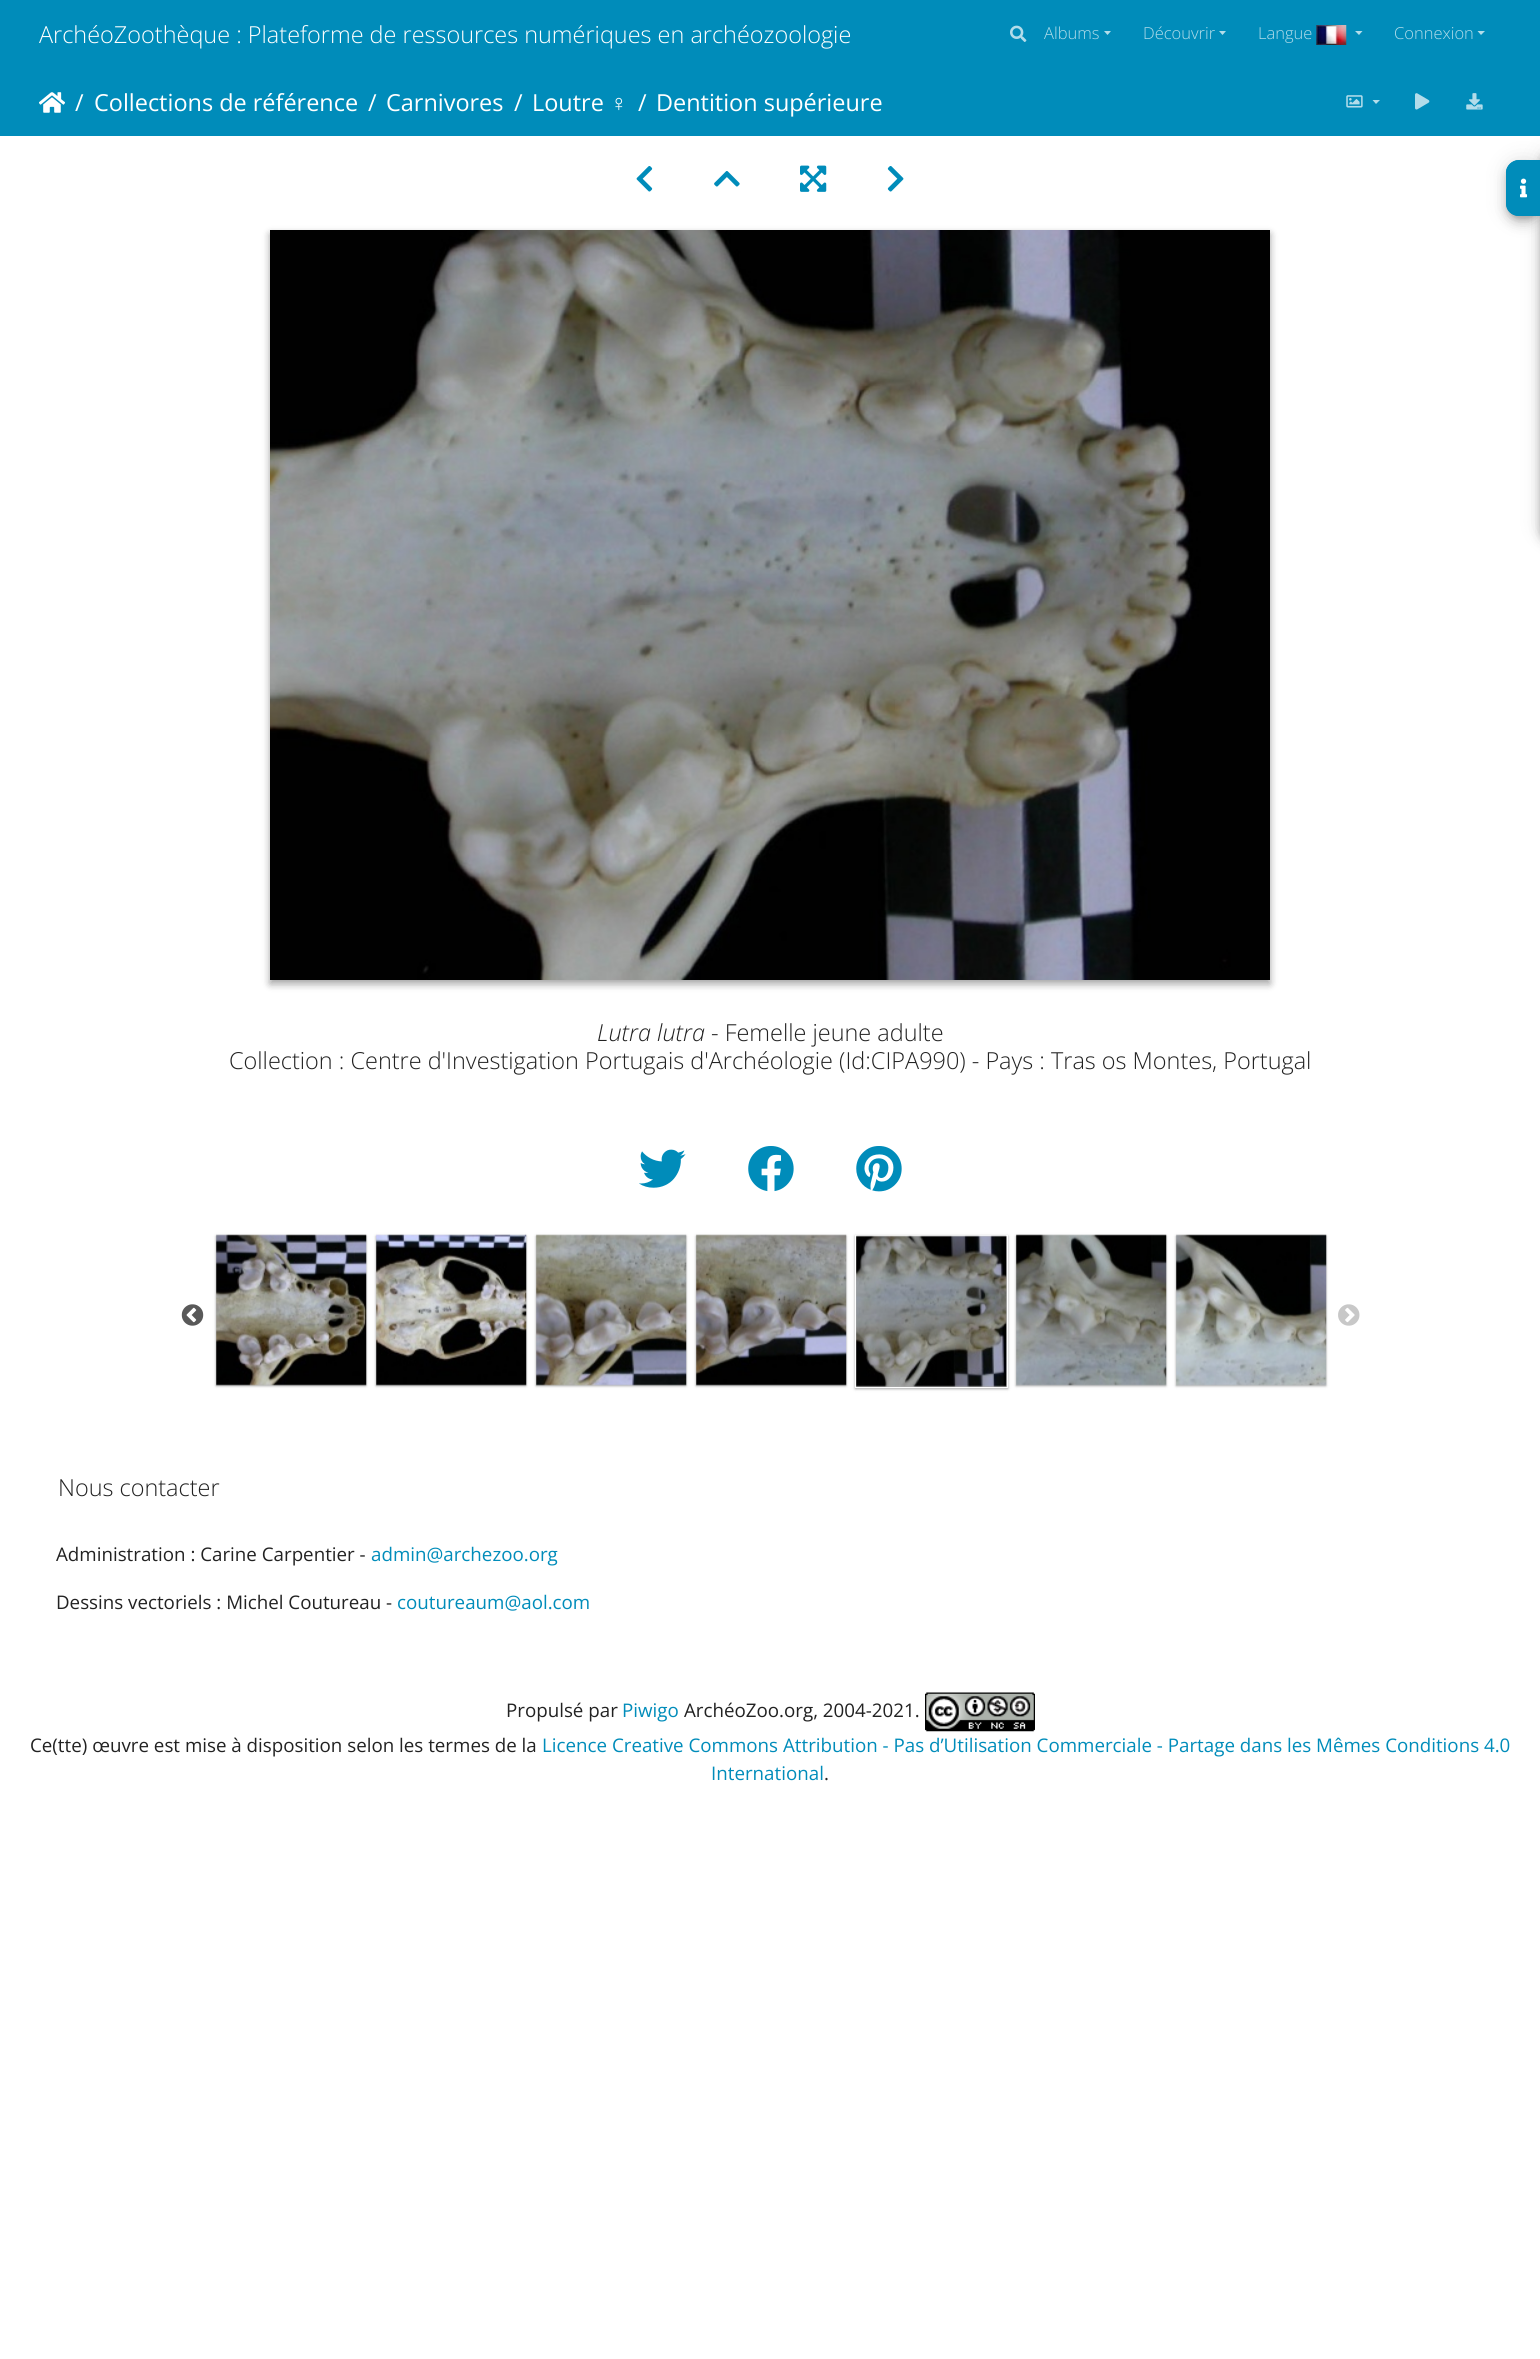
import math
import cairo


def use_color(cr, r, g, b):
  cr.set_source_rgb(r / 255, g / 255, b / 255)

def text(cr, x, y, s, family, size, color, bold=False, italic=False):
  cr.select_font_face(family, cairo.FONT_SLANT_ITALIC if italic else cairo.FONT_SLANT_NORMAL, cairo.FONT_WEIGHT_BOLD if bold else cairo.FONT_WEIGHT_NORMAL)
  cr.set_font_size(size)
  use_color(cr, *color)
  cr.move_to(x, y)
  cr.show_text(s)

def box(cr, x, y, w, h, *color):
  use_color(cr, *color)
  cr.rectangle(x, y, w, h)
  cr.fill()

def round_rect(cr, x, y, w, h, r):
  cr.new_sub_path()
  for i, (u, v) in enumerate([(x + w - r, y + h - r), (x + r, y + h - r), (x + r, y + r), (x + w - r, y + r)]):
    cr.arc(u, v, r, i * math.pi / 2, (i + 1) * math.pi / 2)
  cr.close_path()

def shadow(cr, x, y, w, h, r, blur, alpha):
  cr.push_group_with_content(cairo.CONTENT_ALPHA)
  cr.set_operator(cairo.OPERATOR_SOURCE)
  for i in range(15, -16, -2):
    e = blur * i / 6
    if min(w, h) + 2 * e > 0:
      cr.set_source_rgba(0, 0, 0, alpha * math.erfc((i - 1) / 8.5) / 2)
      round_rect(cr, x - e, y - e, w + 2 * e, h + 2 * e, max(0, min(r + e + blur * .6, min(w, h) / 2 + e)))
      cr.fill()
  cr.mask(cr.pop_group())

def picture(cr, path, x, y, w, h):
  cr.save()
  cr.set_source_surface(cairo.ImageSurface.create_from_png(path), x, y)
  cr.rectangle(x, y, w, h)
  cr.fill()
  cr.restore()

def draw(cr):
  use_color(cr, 255, 255, 255)
  cr.paint()
  use_color(cr, 0, 0, 0)
  shadow(cr, 1540, 149, 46, 390, 13, 11, 0.12)
  shadow(cr, 1506, 161, 34, 57, 13, 11, 0.12)
  box(cr, 0, 0, 1540, 136, 0, 140, 186)
  picture(cr, "img_01.png", 1010, 25, 17, 17)
  use_color(cr, 179, 221, 234)
  cr.new_path()
  cr.move_to(1104, 31)
  cr.line_to(1111, 31)
  cr.line_to(1107.5, 35)
  cr.close_path()
  cr.fill()
  cr.new_path()
  cr.move_to(1219, 31)
  cr.line_to(1226, 31)
  cr.line_to(1222.5, 35)
  cr.close_path()
  cr.fill()
  picture(cr, "img_02.png", 1316, 25, 31, 20)
  cr.new_path()
  cr.move_to(1355, 31)
  cr.line_to(1362.5, 31)
  cr.line_to(1359, 35)
  cr.close_path()
  cr.fill()
  cr.new_path()
  cr.move_to(1477.5, 31)
  cr.line_to(1485, 31)
  cr.line_to(1481, 35)
  cr.close_path()
  cr.fill()
  picture(cr, "img_03.png", 39, 92, 26, 21)
  picture(cr, "img_04.png", 1346, 95, 17, 13)
  cr.new_path()
  cr.move_to(1372.5, 100)
  cr.line_to(1380, 100)
  cr.line_to(1376, 104)
  cr.close_path()
  cr.fill()
  picture(cr, "img_05.png", 1415, 93, 15, 17)
  picture(cr, "img_06.png", 1466, 93, 17, 17)
  picture(cr, "img_07.png", 636, 166, 17, 26)
  picture(cr, "img_08.png", 714, 171, 26, 16)
  picture(cr, "img_09.png", 800, 165, 27, 27)
  picture(cr, "img_10.png", 887, 166, 17, 26)
  use_color(cr, 0, 0, 0)
  shadow(cr, 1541, 153, 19, 387, 11, 3, 0.2)
  shadow(cr, 1540, 155, 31, 390, 13, 6, 0.14)
  shadow(cr, 1508, 165, 31, 54, 11, 3, 0.2)
  shadow(cr, 1506, 168, 34, 56, 13, 6, 0.14)
  use_color(cr, 0, 140, 186)
  cr.new_path()
  cr.move_to(1519, 160)
  cr.line_to(1540, 160)
  cr.line_to(1540, 216)
  cr.line_to(1519, 216)
  cr.curve_to(1512, 216, 1506, 210, 1506, 203)
  cr.line_to(1506, 173)
  cr.curve_to(1506, 166, 1512, 160, 1519, 160)
  cr.close_path()
  cr.fill()
  cr.set_fill_rule(cairo.FILL_RULE_EVEN_ODD)
  cr.new_path()
  cr.move_to(1519, 160)
  cr.line_to(1540, 160)
  cr.line_to(1540, 216)
  cr.line_to(1519, 216)
  cr.curve_to(1512, 216, 1506, 211, 1506, 204)
  cr.line_to(1506, 172)
  cr.curve_to(1506, 166, 1512, 160, 1519, 160)
  cr.close_path()
  cr.move_to(1519, 161)
  cr.line_to(1540, 161)
  cr.line_to(1540, 215)
  cr.line_to(1519, 215)
  cr.curve_to(1513, 215, 1508, 210, 1508, 204)
  cr.line_to(1508, 172)
  cr.curve_to(1508, 166, 1513, 161, 1519, 161)
  cr.close_path()
  cr.fill()
  picture(cr, "img_11.png", 1520, 178, 8, 20)
  use_color(cr, 0, 0, 0)
  shadow(cr, 270, 234, 1000, 750, 0, 4, 0.23)
  shadow(cr, 270, 234, 1000, 750, 0, 4, 0.16)
  picture(cr, "img_12.png", 270, 230, 1000, 750)
  picture(cr, "img_13.png", 639, 1149, 47, 39)
  picture(cr, "img_14.png", 748, 1146, 46, 46)
  picture(cr, "img_15.png", 856, 1146, 46, 46)
  picture(cr, "img_16.png", 181, 1304, 23, 22)
  shadow(cr, 216, 1236, 150, 150, 0, 2, 0.12)
  shadow(cr, 216, 1236, 150, 150, 0, 1, 0.24)
  picture(cr, "img_17.png", 216, 1234, 151, 152)
  shadow(cr, 376, 1236, 150, 150, 0, 2, 0.12)
  shadow(cr, 376, 1236, 150, 150, 0, 1, 0.24)
  picture(cr, "img_18.png", 376, 1234, 151, 152)
  shadow(cr, 536, 1236, 150, 150, 0, 2, 0.12)
  shadow(cr, 536, 1236, 150, 150, 0, 1, 0.24)
  picture(cr, "img_19.png", 536, 1234, 151, 152)
  shadow(cr, 696, 1236, 150, 150, 0, 2, 0.12)
  shadow(cr, 696, 1236, 150, 150, 0, 1, 0.24)
  picture(cr, "img_20.png", 696, 1234, 151, 152)
  shadow(cr, 855, 1236, 153, 153, 0, 2, 0.12)
  shadow(cr, 855, 1236, 153, 153, 0, 1, 0.24)
  cr.rectangle(855.5, 1235.5, 152, 152)
  use_color(cr, 255, 255, 255)
  cr.set_line_width(1)
  cr.stroke()
  picture(cr, "img_21.png", 856, 1235, 151, 152)
  use_color(cr, 0, 0, 0)
  shadow(cr, 1016, 1236, 150, 150, 0, 2, 0.12)
  shadow(cr, 1016, 1236, 150, 150, 0, 1, 0.24)
  picture(cr, "img_22.png", 1016, 1234, 151, 152)
  shadow(cr, 1176, 1236, 150, 150, 0, 2, 0.12)
  shadow(cr, 1176, 1236, 150, 150, 0, 1, 0.24)
  picture(cr, "img_23.png", 1176, 1234, 151, 152)
  picture(cr, "img_24.png", 1338, 1304, 22, 22)
  picture(cr, "img_25.png", 925, 1692, 110, 40)
  text(cr, 39, 43, "ArchéoZoothèque : Plateforme de ressources numériques en archéozoologie", "Open Sans Light", 23.45, (255, 255, 255))
  text(cr, 1044, 39, "Albums", "Open Sans Light", 16.5, (179, 221, 234))
  text(cr, 1143, 39, "Découvrir", "Open Sans Light", 16.5, (179, 221, 234))
  text(cr, 1258, 39, "Langue", "Open Sans Light", 16.5, (179, 221, 234))
  text(cr, 1394, 39, "Connexion", "Open Sans Light", 16.5, (179, 221, 234))
  text(cr, 75, 111, "/", "Open Sans", 23.45, (255, 255, 255))
  text(cr, 94, 111, "Collections de référence", "Open Sans", 23.45, (255, 255, 255))
  text(cr, 368, 111, "/", "Open Sans", 23.45, (255, 255, 255))
  text(cr, 386, 111, "Carnivores", "Open Sans", 23.45, (255, 255, 255))
  text(cr, 514, 111, "/", "Open Sans", 23.45, (255, 255, 255))
  text(cr, 532, 111, "Loutre", "Open Sans", 23.45, (255, 255, 255))
  text(cr, 610, 111, "♀", "Liberation Sans", 23.45, (255, 255, 255))
  text(cr, 638, 111, "/", "Open Sans", 23.45, (255, 255, 255))
  text(cr, 656, 111, "Dentition supérieure", "Open Sans", 23.45, (255, 255, 255))
  text(cr, 597, 1041, "Lutra lutra", "Open Sans Light", 23.45, (34, 34, 34), italic=True)
  text(cr, 711, 1041, "- Femelle jeune adulte", "Open Sans Light", 23.45, (34, 34, 34))
  text(cr, 229, 1069, "Collection : Centre d'Investigation Portugais d'Archéologie (Id:CIPA990) - Pays : Tras os Montes, Portugal", "Open Sans Light", 23.45, (34, 34, 34))
  text(cr, 58, 1496, "Nous contacter", "Open Sans Light", 23.45, (34, 34, 34))
  text(cr, 56, 1561, "Administration : Carine Carpentier -", "Open Sans", 18.75, (34, 34, 34))
  text(cr, 371, 1561, "admin@archezoo.org", "Open Sans", 18.75, (0, 140, 186))
  text(cr, 56, 1609, "Dessins vectoriels : Michel Coutureau -", "Open Sans", 18.75, (34, 34, 34))
  text(cr, 397, 1609, "coutureaum@aol.com", "Open Sans", 18.75, (0, 140, 186))
  text(cr, 506, 1717, "Propulsé par", "Open Sans", 18.75, (34, 34, 34))
  text(cr, 622, 1717, "Piwigo", "Open Sans", 18.75, (0, 140, 186))
  text(cr, 684, 1717, "ArchéoZoo.org, 2004-2021.", "Open Sans", 18.75, (34, 34, 34))
  text(cr, 30, 1752, "Ce(tte) œuvre est mise à disposition selon les termes de la", "Open Sans", 18.75, (34, 34, 34))
  text(cr, 542, 1752, "Licence Creative Commons Attribution - Pas d’Utilisation Commerciale - Partage dans les Mêmes Conditions 4.0", "Open Sans", 18.75, (0, 140, 186))
  text(cr, 711, 1780, "International", "Open Sans", 18.75, (0, 140, 186))
  text(cr, 824, 1780, ".", "Open Sans", 18.75, (34, 34, 34))


surface = cairo.ImageSurface(cairo.FORMAT_RGB24, 1540, 2359)
cr = cairo.Context(surface)
options = cairo.FontOptions()
options.set_hint_metrics(cairo.HINT_METRICS_OFF)
options.set_hint_style(cairo.HINT_STYLE_NONE)
cr.set_font_options(options)
cr.set_miter_limit(4)
draw(cr)
surface.write_to_png("out.png")
